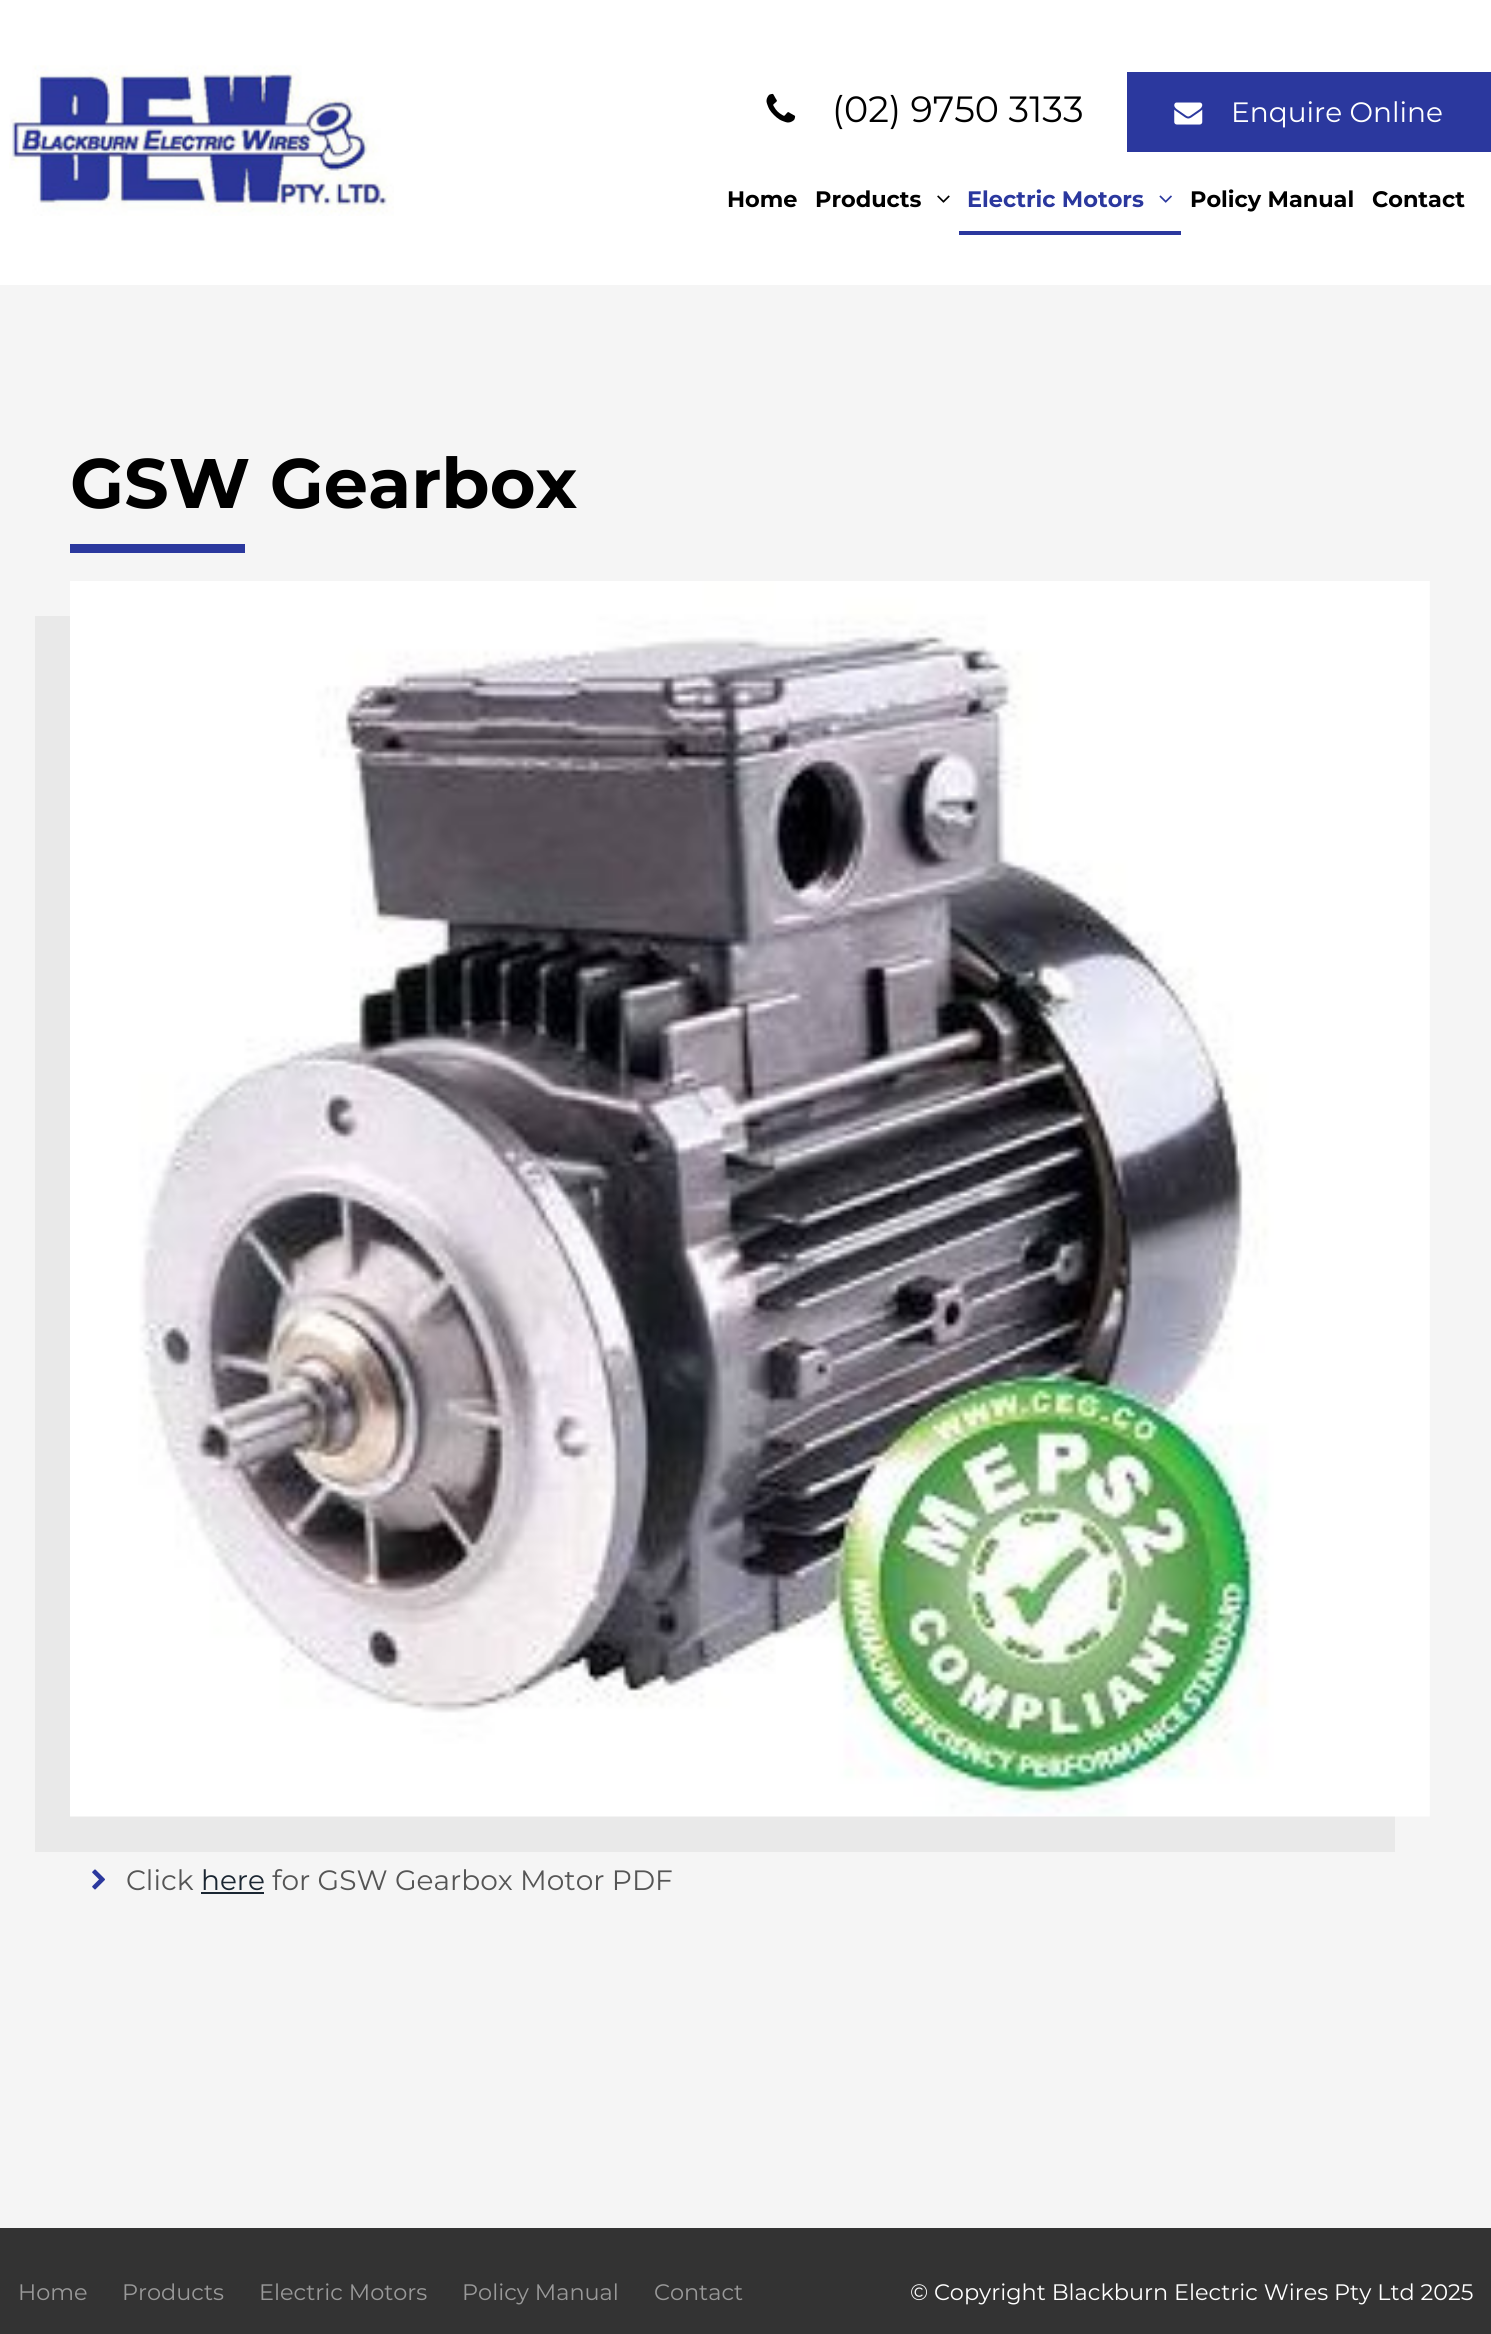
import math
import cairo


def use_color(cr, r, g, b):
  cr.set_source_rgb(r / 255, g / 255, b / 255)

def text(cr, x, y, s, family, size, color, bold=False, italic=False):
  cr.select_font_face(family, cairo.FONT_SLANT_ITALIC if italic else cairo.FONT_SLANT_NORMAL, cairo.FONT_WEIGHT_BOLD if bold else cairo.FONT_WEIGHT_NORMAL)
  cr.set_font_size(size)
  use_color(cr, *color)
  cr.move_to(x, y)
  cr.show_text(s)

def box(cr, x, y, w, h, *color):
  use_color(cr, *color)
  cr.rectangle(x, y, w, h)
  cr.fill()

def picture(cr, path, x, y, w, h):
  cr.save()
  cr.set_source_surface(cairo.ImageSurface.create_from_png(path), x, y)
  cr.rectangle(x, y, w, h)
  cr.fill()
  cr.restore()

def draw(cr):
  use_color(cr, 245, 245, 245)
  cr.paint()
  box(cr, 0, 0, 1491, 285, 255, 255, 255)
  picture(cr, "img_01.png", 9, 65, 385, 151)
  picture(cr, "img_02.png", 766, 93, 30, 30)
  box(cr, 1127, 72, 364, 80, 43, 56, 158)
  picture(cr, "img_03.png", 1174, 102, 29, 23)
  picture(cr, "img_04.png", 937, 195, 13, 8)
  box(cr, 959, 231, 222, 4, 43, 56, 158)
  picture(cr, "img_05.png", 1159, 195, 13, 8)
  box(cr, 70, 544, 175, 9, 43, 56, 158)
  use_color(cr, 233, 233, 233)
  cr.new_path()
  cr.move_to(35, 616)
  cr.line_to(35, 1852)
  cr.line_to(1395, 1852)
  cr.line_to(1395, 1816)
  cr.line_to(70, 1816)
  cr.line_to(70, 616)
  cr.close_path()
  cr.fill()
  picture(cr, "img_06.png", 70, 581, 1360, 1236)
  picture(cr, "img_07.png", 92, 1869, 13, 21)
  box(cr, 201, 1892, 63, 2, 26, 38, 50)
  box(cr, 0, 2228, 1491, 106, 51, 51, 51)
  text(cr, 832, 122, "(02) 9750 3133", "Montserrat", 36.5, (0, 0, 0))
  text(cr, 1231, 122, "Enquire Online", "Montserrat", 28, (255, 255, 255))
  text(cr, 727, 207, "Home", "Montserrat", 22.4, (0, 0, 0), bold=True)
  text(cr, 815, 207, "Products", "Montserrat", 22.4, (0, 0, 0), bold=True)
  text(cr, 967, 207, "Electric Motors", "Montserrat", 22.4, (43, 56, 158), bold=True)
  text(cr, 1190, 207, "Policy Manual", "Montserrat", 22.4, (0, 0, 0), bold=True)
  text(cr, 1372, 207, "Contact", "Montserrat", 22.4, (0, 0, 0), bold=True)
  text(cr, 70, 508, "GSW Gearbox", "Montserrat", 70, (0, 0, 0), bold=True)
  text(cr, 126, 1890, "Click", "Montserrat", 28, (85, 85, 85))
  text(cr, 201, 1890, "here", "Montserrat", 28, (26, 38, 50))
  text(cr, 272, 1890, "for GSW Gearbox Motor PDF", "Montserrat", 28, (85, 85, 85))
  text(cr, 18, 2300, "Home", "Montserrat", 22.4, (153, 153, 153))
  text(cr, 122, 2300, "Products", "Montserrat", 22.4, (153, 153, 153))
  text(cr, 259, 2300, "Electric Motors", "Montserrat", 22.4, (153, 153, 153))
  text(cr, 462, 2300, "Policy Manual", "Montserrat", 22.4, (153, 153, 153))
  text(cr, 654, 2300, "Contact", "Montserrat", 22.4, (153, 153, 153))
  text(cr, 910, 2300, "© Copyright Blackburn Electric Wires Pty Ltd 2025", "Montserrat", 22.4, (255, 255, 255))


surface = cairo.ImageSurface(cairo.FORMAT_RGB24, 1491, 2334)
cr = cairo.Context(surface)
options = cairo.FontOptions()
options.set_hint_metrics(cairo.HINT_METRICS_OFF)
options.set_hint_style(cairo.HINT_STYLE_NONE)
cr.set_font_options(options)
cr.set_miter_limit(4)
draw(cr)
surface.write_to_png("out.png")
